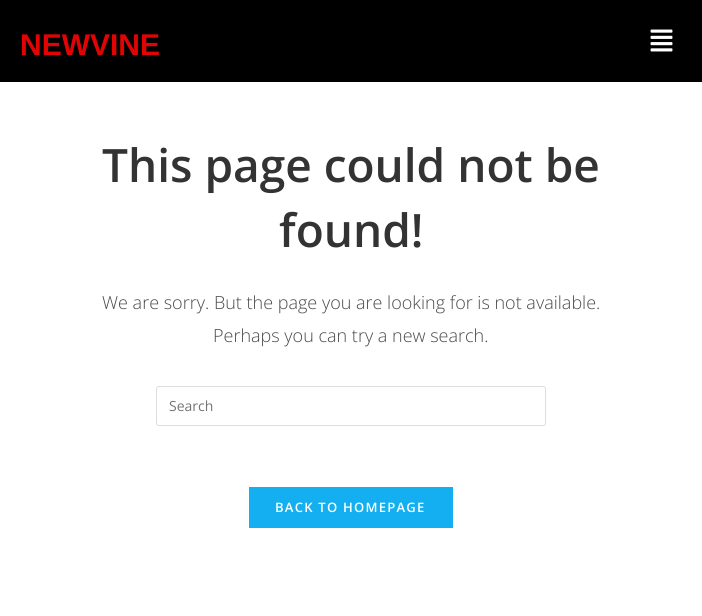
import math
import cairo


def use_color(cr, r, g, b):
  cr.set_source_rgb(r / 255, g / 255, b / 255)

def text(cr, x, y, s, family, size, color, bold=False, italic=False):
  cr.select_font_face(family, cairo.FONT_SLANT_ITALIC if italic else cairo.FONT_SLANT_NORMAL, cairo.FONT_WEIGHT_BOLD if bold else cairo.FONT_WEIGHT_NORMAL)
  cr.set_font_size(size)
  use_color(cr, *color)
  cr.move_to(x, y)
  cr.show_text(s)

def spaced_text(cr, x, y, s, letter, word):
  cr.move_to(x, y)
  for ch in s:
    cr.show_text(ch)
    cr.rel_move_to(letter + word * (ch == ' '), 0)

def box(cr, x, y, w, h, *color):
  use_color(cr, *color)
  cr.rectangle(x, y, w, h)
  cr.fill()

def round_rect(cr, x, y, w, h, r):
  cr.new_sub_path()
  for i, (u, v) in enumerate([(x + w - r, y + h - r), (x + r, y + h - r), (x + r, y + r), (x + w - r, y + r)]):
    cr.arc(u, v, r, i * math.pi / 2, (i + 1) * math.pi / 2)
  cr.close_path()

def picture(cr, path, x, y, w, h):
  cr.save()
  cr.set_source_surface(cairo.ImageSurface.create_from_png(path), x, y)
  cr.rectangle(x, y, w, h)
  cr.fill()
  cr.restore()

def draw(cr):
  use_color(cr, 255, 255, 255)
  cr.paint()
  box(cr, 0, 0, 702, 82, 0, 0, 0)
  picture(cr, "img_01.png", 650, 29, 23, 23)
  round_rect(cr, 156.5, 386.5, 389, 39, 2.5)
  use_color(cr, 221, 221, 221)
  cr.set_line_width(1)
  cr.stroke()
  box(cr, 249, 487, 204, 41, 19, 175, 240)
  text(cr, 20, 55, "NEWVINE", "Liberation Sans", 30, (226, 4, 4), bold=True)
  text(cr, 102, 182, "This page could not be", "Open Sans SemiBold", 46, (51, 51, 51))
  text(cr, 279, 247, "found!", "Open Sans SemiBold", 46, (51, 51, 51))
  text(cr, 102, 309, "We are sorry. But the page you are looking for is not available.", "Open Sans Light", 18, (74, 74, 74))
  text(cr, 213, 342, "Perhaps you can try a new search.", "Open Sans Light", 18, (74, 74, 74))
  text(cr, 169, 411, "Search", "Open Sans", 14, (117, 117, 117))
  cr.select_font_face("Open Sans SemiBold")
  cr.set_font_size(13)
  use_color(cr, 255, 255, 255)
  spaced_text(cr, 275, 512, "BACK TO HOMEPAGE", 1.25, 0)


surface = cairo.ImageSurface(cairo.FORMAT_RGB24, 702, 616)
cr = cairo.Context(surface)
options = cairo.FontOptions()
options.set_hint_metrics(cairo.HINT_METRICS_OFF)
options.set_hint_style(cairo.HINT_STYLE_NONE)
cr.set_font_options(options)
cr.set_miter_limit(4)
draw(cr)
surface.write_to_png("out.png")
